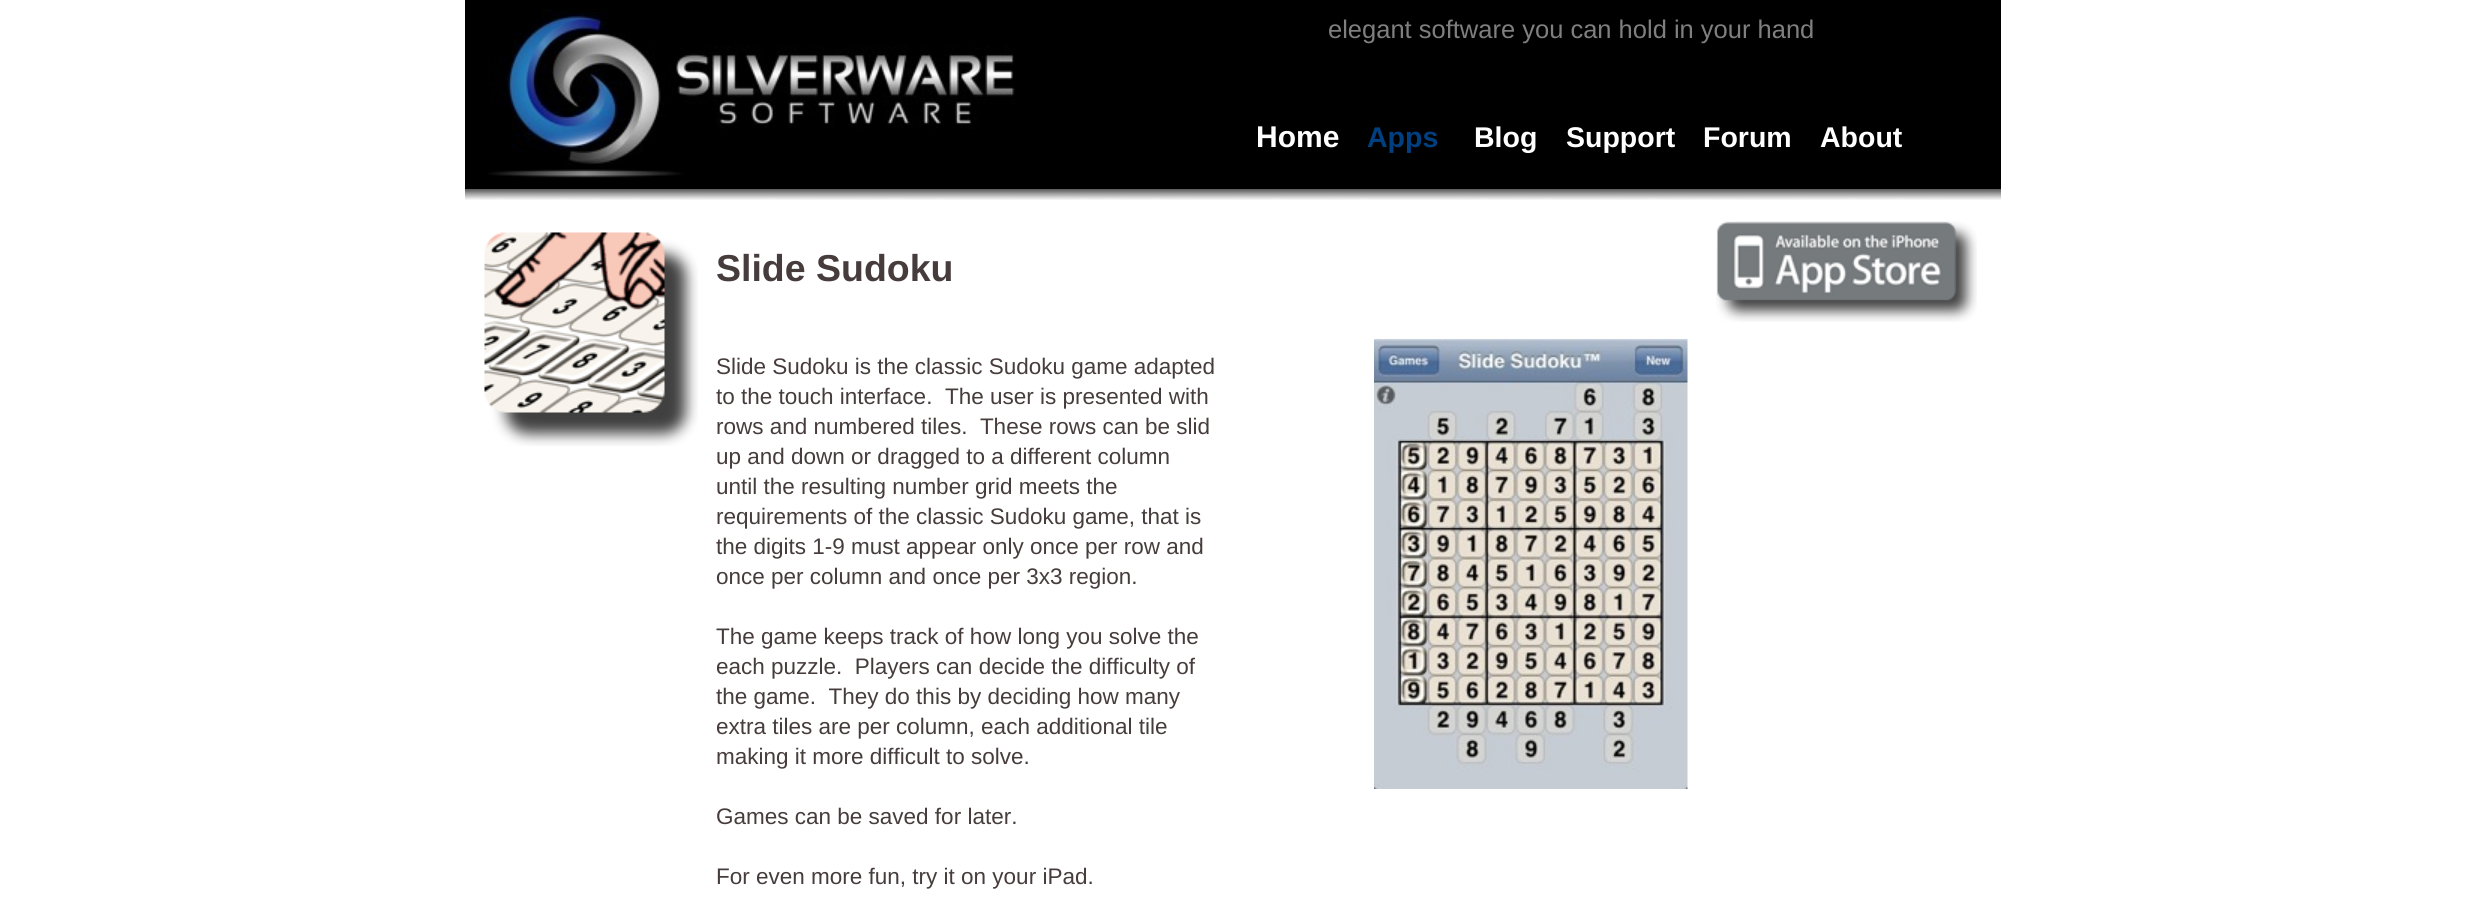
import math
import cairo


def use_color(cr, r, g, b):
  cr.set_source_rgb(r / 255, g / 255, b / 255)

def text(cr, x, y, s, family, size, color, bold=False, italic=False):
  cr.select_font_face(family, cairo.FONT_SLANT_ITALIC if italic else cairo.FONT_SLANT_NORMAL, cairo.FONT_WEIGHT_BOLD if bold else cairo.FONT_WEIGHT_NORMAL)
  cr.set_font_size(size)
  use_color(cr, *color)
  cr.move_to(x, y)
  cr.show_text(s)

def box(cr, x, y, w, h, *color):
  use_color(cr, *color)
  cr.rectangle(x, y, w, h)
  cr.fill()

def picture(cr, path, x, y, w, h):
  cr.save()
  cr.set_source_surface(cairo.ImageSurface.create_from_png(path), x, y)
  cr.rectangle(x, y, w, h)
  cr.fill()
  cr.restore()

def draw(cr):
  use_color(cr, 255, 255, 255)
  cr.paint()
  box(cr, 465, 0, 1536, 189, 0, 0, 0)
  picture(cr, "img_01.png", 488, 9, 527, 169)
  picture(cr, "img_02.png", 465, 189, 1536, 11)
  picture(cr, "img_03.png", 484, 232, 214, 214)
  picture(cr, "img_04.png", 1716, 221, 261, 101)
  picture(cr, "img_05.png", 1374, 339, 314, 450)
  text(cr, 1328, 38, "elegant software you can hold in your hand", "Liberation Sans", 25.5, (127, 127, 127))
  text(cr, 1256, 147, "Home", "Liberation Sans", 30, (255, 255, 255), bold=True)
  text(cr, 1367, 147, "Apps", "Liberation Sans", 28.5, (0, 64, 128), bold=True)
  text(cr, 1474, 147, "Blog", "Liberation Sans", 28.5, (255, 255, 255), bold=True)
  text(cr, 1566, 147, "Support", "Liberation Sans", 28.5, (255, 255, 255), bold=True)
  text(cr, 1703, 147, "Forum", "Liberation Sans", 28.5, (255, 255, 255), bold=True)
  text(cr, 1820, 147, "About", "Liberation Sans", 28.5, (255, 255, 255), bold=True)
  text(cr, 716, 281, "Slide Sudoku", "Liberation Sans", 37.5, (70, 60, 60), bold=True)
  text(cr, 716, 374, "Slide Sudoku is the classic Sudoku game adapted", "Liberation Sans", 22.5, (70, 60, 60))
  text(cr, 716, 404, "to the touch interface.  The user is presented with", "Liberation Sans", 22.5, (70, 60, 60))
  text(cr, 716, 434, "rows and numbered tiles.  These rows can be slid", "Liberation Sans", 22.5, (70, 60, 60))
  text(cr, 716, 464, "up and down or dragged to a different column", "Liberation Sans", 22.5, (70, 60, 60))
  text(cr, 716, 494, "until the resulting number grid meets the", "Liberation Sans", 22.5, (70, 60, 60))
  text(cr, 716, 524, "requirements of the classic Sudoku game, that is", "Liberation Sans", 22.5, (70, 60, 60))
  text(cr, 716, 554, "the digits 1-9 must appear only once per row and", "Liberation Sans", 22.5, (70, 60, 60))
  text(cr, 716, 584, "once per column and once per 3x3 region.", "Liberation Sans", 22.5, (70, 60, 60))
  text(cr, 716, 644, "The game keeps track of how long you solve the", "Liberation Sans", 22.5, (70, 60, 60))
  text(cr, 716, 674, "each puzzle.  Players can decide the difficulty of", "Liberation Sans", 22.5, (70, 60, 60))
  text(cr, 716, 704, "the game.  They do this by deciding how many", "Liberation Sans", 22.5, (70, 60, 60))
  text(cr, 716, 734, "extra tiles are per column, each additional tile", "Liberation Sans", 22.5, (70, 60, 60))
  text(cr, 716, 764, "making it more difficult to solve.", "Liberation Sans", 22.5, (70, 60, 60))
  text(cr, 716, 824, "Games can be saved for later.", "Liberation Sans", 22.5, (70, 60, 60))
  text(cr, 716, 884, "For even more fun, try it on your iPad.", "Liberation Sans", 22.5, (70, 60, 60))


surface = cairo.ImageSurface(cairo.FORMAT_RGB24, 2466, 897)
cr = cairo.Context(surface)
options = cairo.FontOptions()
options.set_hint_metrics(cairo.HINT_METRICS_OFF)
options.set_hint_style(cairo.HINT_STYLE_NONE)
cr.set_font_options(options)
cr.set_miter_limit(4)
draw(cr)
surface.write_to_png("out.png")
